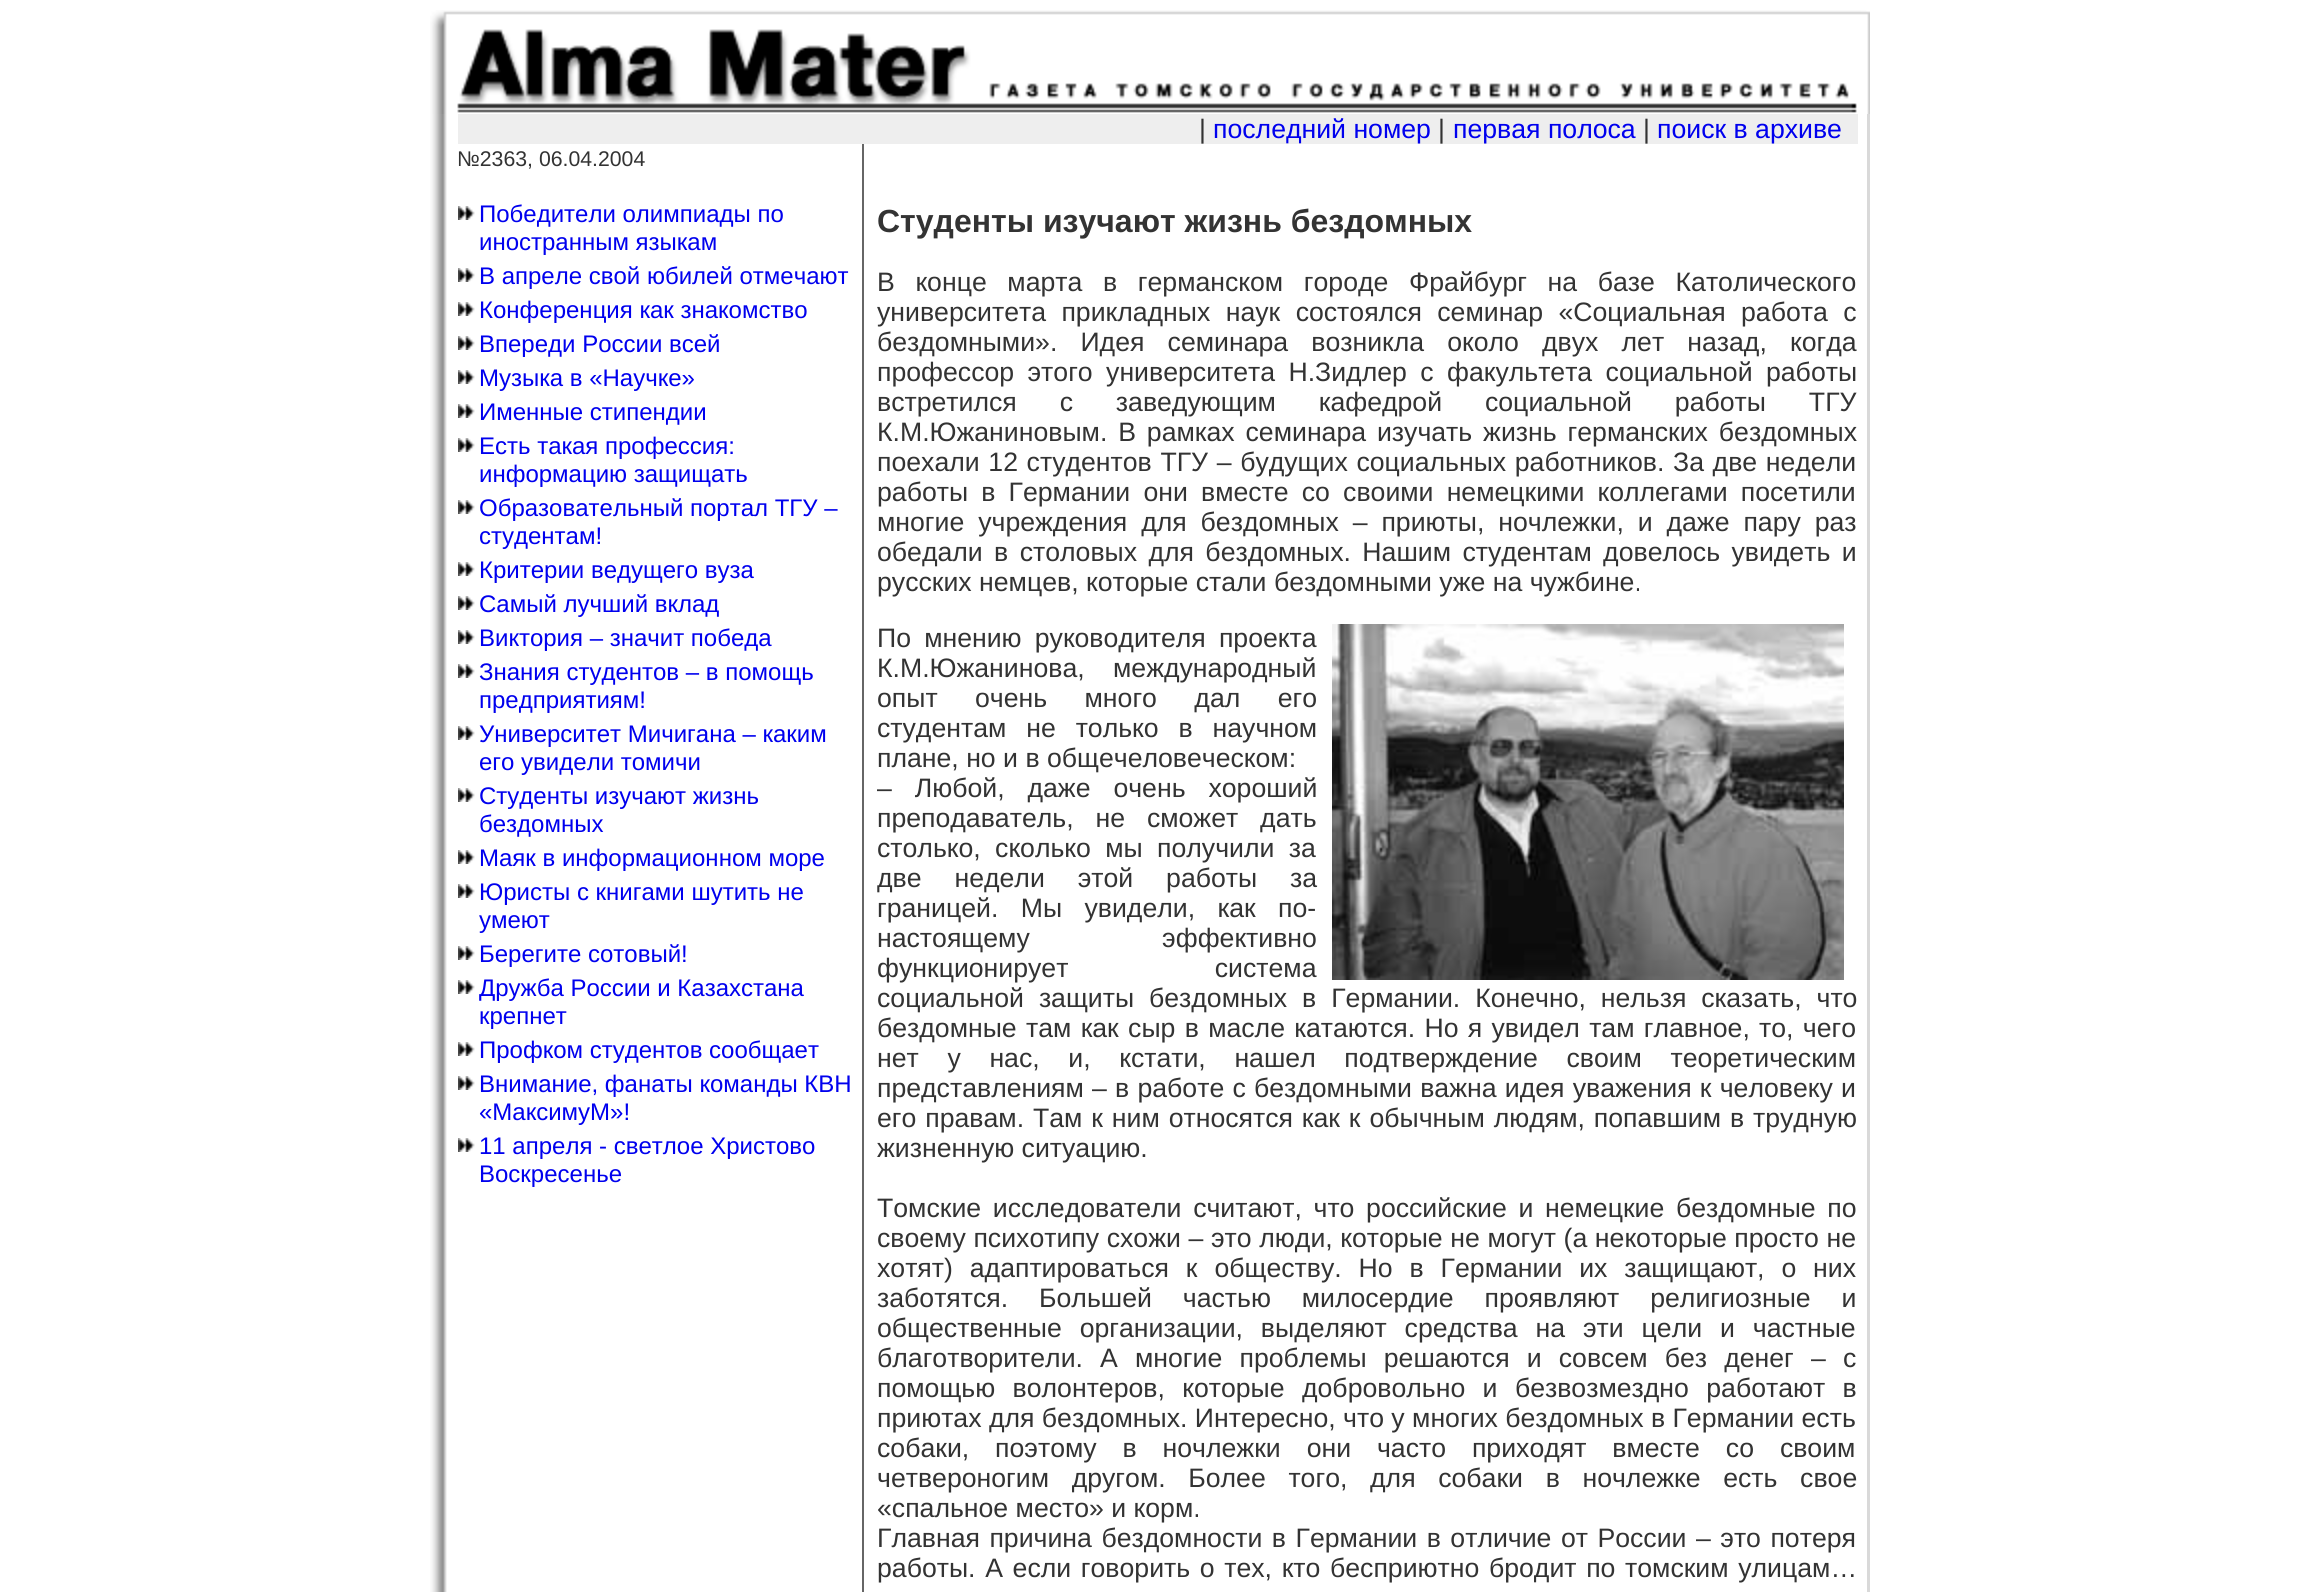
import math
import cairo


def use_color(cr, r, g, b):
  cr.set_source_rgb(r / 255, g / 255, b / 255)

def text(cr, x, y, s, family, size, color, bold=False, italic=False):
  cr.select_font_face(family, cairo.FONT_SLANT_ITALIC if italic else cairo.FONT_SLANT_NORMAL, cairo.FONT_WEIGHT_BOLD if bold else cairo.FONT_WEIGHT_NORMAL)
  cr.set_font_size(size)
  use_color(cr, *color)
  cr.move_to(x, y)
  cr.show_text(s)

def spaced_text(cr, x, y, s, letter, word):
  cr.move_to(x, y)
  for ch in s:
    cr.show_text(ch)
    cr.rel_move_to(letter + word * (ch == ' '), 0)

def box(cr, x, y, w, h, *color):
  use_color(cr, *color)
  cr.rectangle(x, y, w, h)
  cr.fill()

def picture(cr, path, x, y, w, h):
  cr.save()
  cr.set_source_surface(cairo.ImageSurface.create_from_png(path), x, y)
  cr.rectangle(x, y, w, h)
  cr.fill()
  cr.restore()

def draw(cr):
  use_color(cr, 255, 255, 255)
  cr.paint()
  picture(cr, "img_01.png", 430, 10, 1440, 104)
  picture(cr, "img_02.png", 430, 114, 17, 30)
  box(cr, 458, 114, 1400, 30, 238, 238, 238)
  box(cr, 1867, 114, 3, 1478, 217, 217, 217)
  picture(cr, "img_03.png", 430, 144, 17, 1448)
  picture(cr, "img_04.png", 458, 206, 17, 14)
  picture(cr, "img_04.png", 458, 268, 17, 14)
  picture(cr, "img_04.png", 458, 302, 17, 14)
  picture(cr, "img_04.png", 458, 336, 17, 14)
  picture(cr, "img_04.png", 458, 370, 17, 14)
  picture(cr, "img_04.png", 458, 404, 17, 14)
  picture(cr, "img_04.png", 458, 438, 17, 14)
  picture(cr, "img_04.png", 458, 500, 17, 14)
  picture(cr, "img_04.png", 458, 562, 17, 14)
  picture(cr, "img_04.png", 458, 596, 17, 14)
  picture(cr, "img_04.png", 458, 630, 17, 14)
  picture(cr, "img_04.png", 458, 664, 17, 14)
  picture(cr, "img_04.png", 458, 726, 17, 14)
  picture(cr, "img_04.png", 458, 788, 17, 14)
  picture(cr, "img_04.png", 458, 850, 17, 14)
  picture(cr, "img_04.png", 458, 884, 17, 14)
  picture(cr, "img_04.png", 458, 946, 17, 14)
  picture(cr, "img_04.png", 458, 980, 17, 14)
  picture(cr, "img_04.png", 458, 1042, 17, 14)
  picture(cr, "img_04.png", 458, 1076, 17, 14)
  picture(cr, "img_04.png", 458, 1138, 17, 14)
  box(cr, 862, 144, 2, 1448, 102, 102, 102)
  picture(cr, "img_05.png", 1332, 624, 512, 356)
  text(cr, 1199, 138, "|", "Liberation Sans", 26.65, (51, 51, 51))
  text(cr, 1213, 138, "последний номер", "Liberation Sans", 26.65, (0, 0, 238))
  text(cr, 1438, 138, "|", "Liberation Sans", 26.65, (51, 51, 51))
  text(cr, 1453, 138, "первая полоса", "Liberation Sans", 26.65, (0, 0, 238))
  text(cr, 1643, 138, "|", "Liberation Sans", 26.65, (51, 51, 51))
  text(cr, 1657, 138, "поиск в архиве", "Liberation Sans", 26.65, (0, 0, 238))
  text(cr, 457, 166, "№2363, 06.04.2004", "Liberation Sans", 21.25, (51, 51, 51))
  text(cr, 479, 222, "Победители олимпиады по", "Liberation Sans", 24, (0, 0, 238))
  text(cr, 479, 250, "иностранным языкам", "Liberation Sans", 24, (0, 0, 238))
  text(cr, 479, 284, "В апреле свой юбилей отмечают", "Liberation Sans", 24, (0, 0, 238))
  text(cr, 479, 318, "Конференция как знакомство", "Liberation Sans", 24, (0, 0, 238))
  text(cr, 479, 352, "Впереди России всей", "Liberation Sans", 24, (0, 0, 238))
  text(cr, 479, 386, "Музыка в «Научке»", "Liberation Sans", 24, (0, 0, 238))
  text(cr, 479, 420, "Именные стипендии", "Liberation Sans", 24, (0, 0, 238))
  text(cr, 479, 454, "Есть такая профессия:", "Liberation Sans", 24, (0, 0, 238))
  text(cr, 479, 482, "информацию защищать", "Liberation Sans", 24, (0, 0, 238))
  text(cr, 479, 516, "Образовательный портал ТГУ –", "Liberation Sans", 24, (0, 0, 238))
  text(cr, 479, 544, "студентам!", "Liberation Sans", 24, (0, 0, 238))
  text(cr, 479, 578, "Критерии ведущего вуза", "Liberation Sans", 24, (0, 0, 238))
  text(cr, 479, 612, "Самый лучший вклад", "Liberation Sans", 24, (0, 0, 238))
  text(cr, 479, 646, "Виктория – значит победа", "Liberation Sans", 24, (0, 0, 238))
  text(cr, 479, 680, "Знания студентов – в помощь", "Liberation Sans", 24, (0, 0, 238))
  text(cr, 479, 708, "предприятиям!", "Liberation Sans", 24, (0, 0, 238))
  text(cr, 479, 742, "Университет Мичигана – каким", "Liberation Sans", 24, (0, 0, 238))
  text(cr, 479, 770, "его увидели томичи", "Liberation Sans", 24, (0, 0, 238))
  text(cr, 479, 804, "Студенты изучают жизнь", "Liberation Sans", 24, (0, 0, 238))
  text(cr, 479, 832, "бездомных", "Liberation Sans", 24, (0, 0, 238))
  text(cr, 479, 866, "Маяк в информационном море", "Liberation Sans", 24, (0, 0, 238))
  text(cr, 479, 900, "Юристы с книгами шутить не", "Liberation Sans", 24, (0, 0, 238))
  text(cr, 479, 928, "умеют", "Liberation Sans", 24, (0, 0, 238))
  text(cr, 479, 962, "Берегите сотовый!", "Liberation Sans", 24, (0, 0, 238))
  text(cr, 479, 996, "Дружба России и Казахстана", "Liberation Sans", 24, (0, 0, 238))
  text(cr, 479, 1024, "крепнет", "Liberation Sans", 24, (0, 0, 238))
  text(cr, 479, 1058, "Профком студентов сообщает", "Liberation Sans", 24, (0, 0, 238))
  text(cr, 479, 1092, "Внимание, фанаты команды КВН", "Liberation Sans", 24, (0, 0, 238))
  text(cr, 479, 1120, "«МаксимуМ»!", "Liberation Sans", 24, (0, 0, 238))
  text(cr, 479, 1154, "11 апреля - светлое Христово", "Liberation Sans", 24, (0, 0, 238))
  text(cr, 479, 1182, "Воскресенье", "Liberation Sans", 24, (0, 0, 238))
  text(cr, 877, 232, "Студенты изучают жизнь бездомных", "Liberation Sans", 32, (51, 51, 51), bold=True)
  cr.select_font_face("Liberation Sans")
  cr.set_font_size(26.65)
  spaced_text(cr, 877, 291, "В конце марта в германском городе Фрайбург на базе Католического", 0, 13.25)
  spaced_text(cr, 877, 321, "университета прикладных наук состоялся семинар «Социальная работа с", 0, 8)
  spaced_text(cr, 877, 351, "бездомными». Идея семинара возникла около двух лет назад, когда", 0, 15.75)
  spaced_text(cr, 877, 381, "профессор этого университета Н.Зидлер с факультета социальной работы", 0, 6)
  spaced_text(cr, 877, 411, "встретился с заведующим кафедрой социальной работы ТГУ", 0, 35.5)
  spaced_text(cr, 877, 441, "К.М.Южаниновым. В рамках семинара изучать жизнь германских бездомных", 0, 3.5)
  spaced_text(cr, 877, 471, "поехали 12 студентов ТГУ – будущих социальных работников. За две недели", 0, 1.25)
  spaced_text(cr, 877, 501, "работы в Германии они вместе со своими немецкими коллегами посетили", 0, 5.75)
  spaced_text(cr, 877, 531, "многие учреждения для бездомных – приюты, ночлежки, и даже пару раз", 0, 6.5)
  spaced_text(cr, 877, 561, "обедали в столовых для бездомных. Нашим студентам довелось увидеть и", 0, 4)
  text(cr, 877, 591, "русских немцев, которые стали бездомными уже на чужбине.", "Liberation Sans", 26.65, (51, 51, 51))
  spaced_text(cr, 877, 647, "По мнению руководителя проекта", 0, 5.75)
  spaced_text(cr, 877, 677, "К.М.Южанинова, международный", 0, 21)
  spaced_text(cr, 877, 707, "опыт очень много дал его", 0, 30)
  spaced_text(cr, 877, 737, "студентам не только в научном", 0, 12.5)
  text(cr, 877, 767, "плане, но и в общечеловеческом:", "Liberation Sans", 26.65, (51, 51, 51))
  spaced_text(cr, 877, 797, "– Любой, даже очень хороший", 0, 15.5)
  spaced_text(cr, 877, 827, "преподаватель, не сможет дать", 0, 14.5)
  spaced_text(cr, 877, 857, "столько, сколько мы получили за", 0, 7)
  spaced_text(cr, 877, 887, "две недели этой работы за", 0, 25.5)
  spaced_text(cr, 877, 917, "границей. Мы увидели, как по-", 0, 15)
  spaced_text(cr, 877, 947, "настоящему эффективно", 0, 125)
  spaced_text(cr, 877, 977, "функционирует система", 0, 139)
  spaced_text(cr, 877, 1007, "социальной защиты бездомных в Германии. Конечно, нельзя сказать, что", 0, 7.5)
  spaced_text(cr, 877, 1037, "бездомные там как сыр в масле катаются. Но я увидел там главное, то, чего", 0, 1.9)
  spaced_text(cr, 877, 1067, "нет у нас, и, кстати, нашел подтверждение своим теоретическим", 0, 21.25)
  spaced_text(cr, 877, 1097, "представлениям – в работе с бездомными важна идея уважения к человеку и", 0, 0.8)
  spaced_text(cr, 877, 1127, "его правам. Там к ним относятся как к обычным людям, попавшим в трудную", 0, 1.5)
  text(cr, 877, 1157, "жизненную ситуацию.", "Liberation Sans", 26.65, (51, 51, 51))
  spaced_text(cr, 877, 1217, "Томские исследователи считают, что российские и немецкие бездомные по", 0, 4.25)
  spaced_text(cr, 877, 1247, "своему психотипу схожи – это люди, которые не могут (а некоторые просто не", 0, 0.25)
  spaced_text(cr, 877, 1277, "хотят) адаптироваться к обществу. Но в Германии их защищают, о них", 0, 9.5)
  spaced_text(cr, 877, 1307, "заботятся. Большей частью милосердие проявляют религиозные и", 0, 23.5)
  spaced_text(cr, 877, 1337, "общественные организации, выделяют средства на эти цели и частные", 0, 10.5)
  spaced_text(cr, 877, 1367, "благотворители. А многие проблемы решаются и совсем без денег – с", 0, 9.75)
  spaced_text(cr, 877, 1397, "помощью волонтеров, которые добровольно и безвозмездно работают в", 0, 10)
  text(cr, 877, 1427, "приютах для бездомных. Интересно, что у многих бездомных в Германии есть", "Liberation Sans", 26.65, (51, 51, 51))
  spaced_text(cr, 877, 1457, "собаки, поэтому в ночлежки они часто приходят вместе со своим", 0, 18.5)
  spaced_text(cr, 877, 1487, "четвероногим другом. Более того, для собаки в ночлежке есть свое", 0, 15.25)
  text(cr, 877, 1517, "«спальное место» и корм.", "Liberation Sans", 26.65, (51, 51, 51))
  spaced_text(cr, 877, 1547, "Главная причина бездомности в Германии в отличие от России – это потеря", 0, 2.1)
  spaced_text(cr, 877, 1577, "работы. А если говорить о тех, кто бесприютно бродит по томским улицам…", 0, 2.25)


surface = cairo.ImageSurface(cairo.FORMAT_RGB24, 2298, 1592)
cr = cairo.Context(surface)
options = cairo.FontOptions()
options.set_hint_metrics(cairo.HINT_METRICS_OFF)
options.set_hint_style(cairo.HINT_STYLE_NONE)
cr.set_font_options(options)
cr.set_miter_limit(4)
draw(cr)
surface.write_to_png("out.png")
